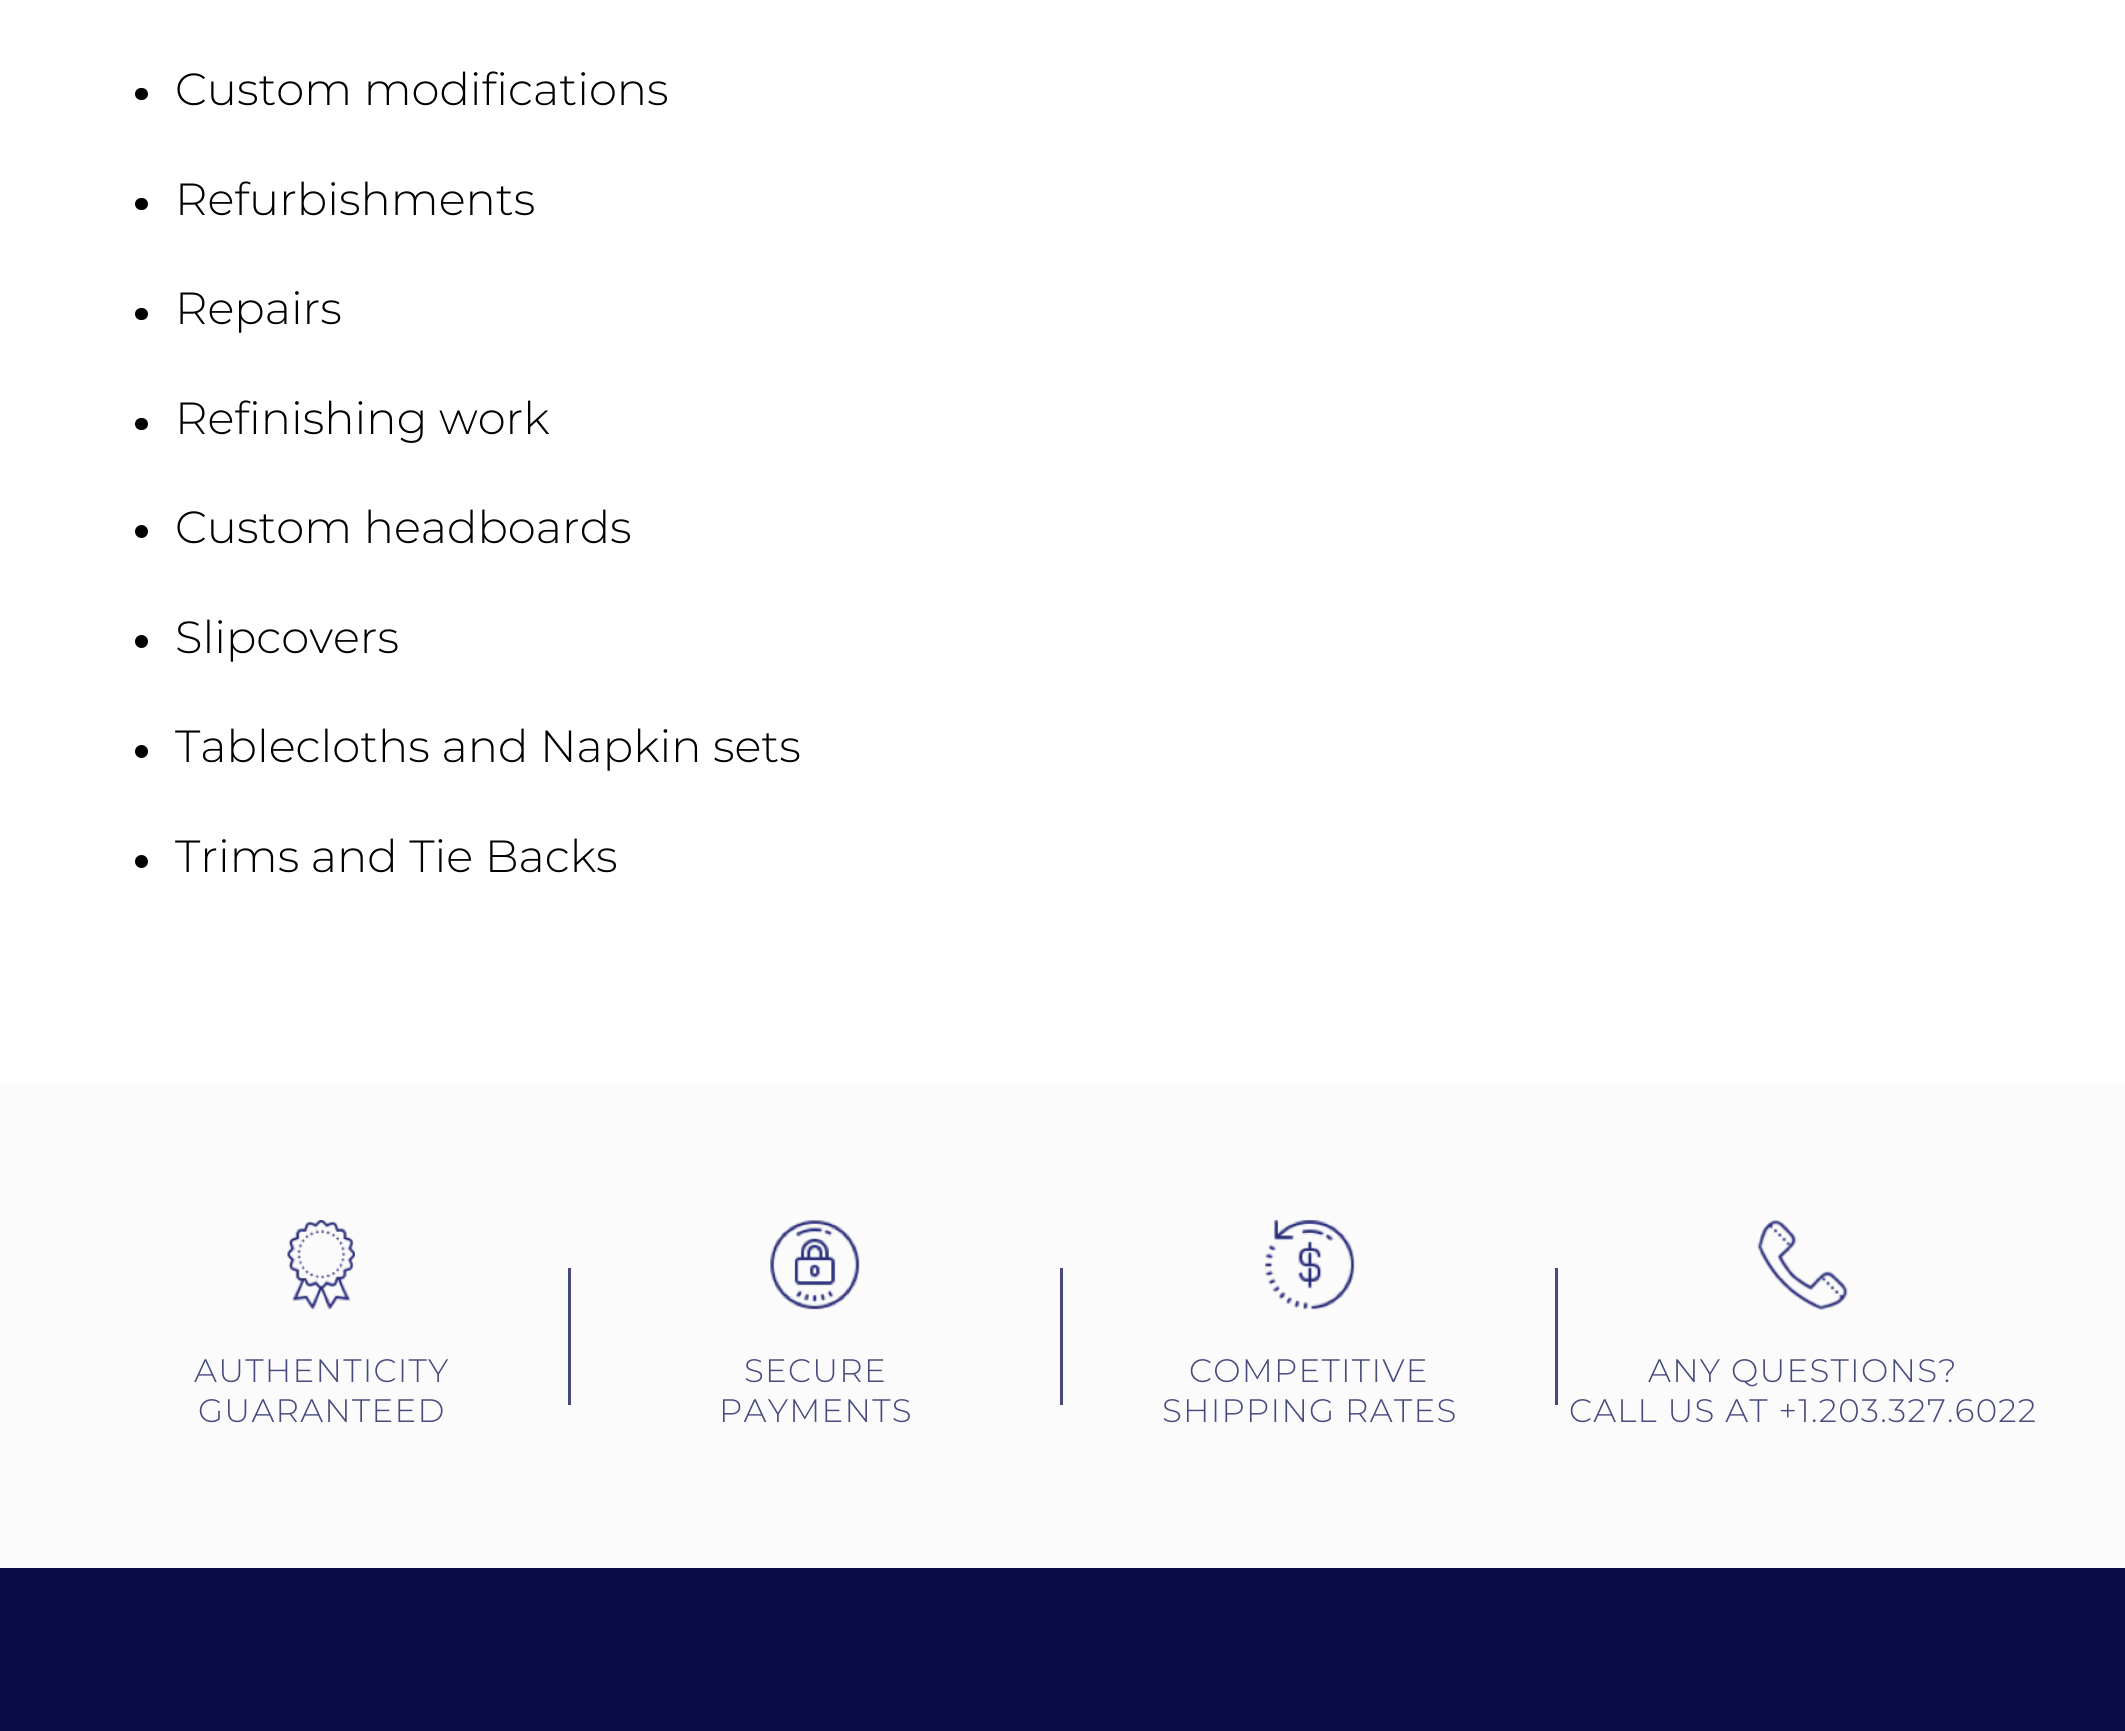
import math
import cairo


def use_color(cr, r, g, b):
  cr.set_source_rgb(r / 255, g / 255, b / 255)

def text(cr, x, y, s, family, size, color, bold=False, italic=False):
  cr.select_font_face(family, cairo.FONT_SLANT_ITALIC if italic else cairo.FONT_SLANT_NORMAL, cairo.FONT_WEIGHT_BOLD if bold else cairo.FONT_WEIGHT_NORMAL)
  cr.set_font_size(size)
  use_color(cr, *color)
  cr.move_to(x, y)
  cr.show_text(s)

def spaced_text(cr, x, y, s, letter, word):
  cr.move_to(x, y)
  for ch in s:
    cr.show_text(ch)
    cr.rel_move_to(letter + word * (ch == ' '), 0)

def box(cr, x, y, w, h, *color):
  use_color(cr, *color)
  cr.rectangle(x, y, w, h)
  cr.fill()

def round_rect(cr, x, y, w, h, r):
  cr.new_sub_path()
  for i, (u, v) in enumerate([(x + w - r, y + h - r), (x + r, y + h - r), (x + r, y + r), (x + w - r, y + r)]):
    cr.arc(u, v, r, i * math.pi / 2, (i + 1) * math.pi / 2)
  cr.close_path()

def picture(cr, path, x, y, w, h):
  cr.save()
  cr.set_source_surface(cairo.ImageSurface.create_from_png(path), x, y)
  cr.rectangle(x, y, w, h)
  cr.fill()
  cr.restore()

def draw(cr):
  use_color(cr, 255, 255, 255)
  cr.paint()
  use_color(cr, 0, 0, 0)
  round_rect(cr, 135, 88, 13, 12, 6)
  cr.fill()
  round_rect(cr, 135, 198, 13, 12, 6)
  cr.fill()
  round_rect(cr, 135, 308, 13, 12, 6)
  cr.fill()
  round_rect(cr, 135, 418, 13, 12, 6)
  cr.fill()
  cr.arc(141.5, 531.5, 6.5, 0, 2 * math.pi)
  cr.fill()
  cr.arc(141.5, 641.5, 6.5, 0, 2 * math.pi)
  cr.fill()
  cr.arc(141.5, 751.5, 6.5, 0, 2 * math.pi)
  cr.fill()
  cr.arc(141.5, 861.5, 6.5, 0, 2 * math.pi)
  cr.fill()
  box(cr, 0, 1083, 2125, 485, 251, 251, 252)
  picture(cr, "img_01.png", 287, 1220, 68, 90)
  box(cr, 568, 1268, 3, 137, 70, 74, 124)
  picture(cr, "img_02.png", 770, 1220, 90, 90)
  box(cr, 1060, 1268, 3, 137, 70, 74, 124)
  picture(cr, "img_03.png", 1265, 1220, 90, 90)
  box(cr, 1555, 1268, 3, 137, 70, 74, 124)
  picture(cr, "img_04.png", 1757, 1220, 91, 90)
  box(cr, 0, 1568, 2125, 163, 9, 12, 71)
  text(cr, 175, 105, "Custom modifications", "Montserrat Light", 45, (0, 0, 0))
  text(cr, 175, 215, "Refurbishments", "Montserrat Light", 45, (0, 0, 0))
  text(cr, 175, 324, "Repairs", "Montserrat Light", 45, (0, 0, 0))
  text(cr, 175, 434, "Refinishing work", "Montserrat Light", 45, (0, 0, 0))
  text(cr, 175, 543, "Custom headboards", "Montserrat Light", 45, (0, 0, 0))
  text(cr, 175, 653, "Slipcovers", "Montserrat Light", 45, (0, 0, 0))
  text(cr, 175, 762, "Tablecloths and Napkin sets", "Montserrat Light", 45, (0, 0, 0))
  text(cr, 175, 872, "Trims and Tie Backs", "Montserrat Light", 45, (0, 0, 0))
  cr.set_font_size(32.5)
  use_color(cr, 70, 74, 124)
  spaced_text(cr, 194, 1382, "AUTHENTICITY", 1.25, 0)
  spaced_text(cr, 198, 1422, "GUARANTEED", 1.25, 0)
  spaced_text(cr, 744, 1382, "SECURE", 1.25, 0)
  spaced_text(cr, 719, 1422, "PAYMENTS", 1.25, 0)
  spaced_text(cr, 1189, 1382, "COMPETITIVE", 1.25, 0)
  spaced_text(cr, 1162, 1422, "SHIPPING RATES", 1.25, 0)
  spaced_text(cr, 1648, 1382, "ANY QUESTIONS?", 1.25, 0)
  spaced_text(cr, 1569, 1422, "CALL US AT +1.203.327.6022", 1.25, 0)


surface = cairo.ImageSurface(cairo.FORMAT_RGB24, 2125, 1731)
cr = cairo.Context(surface)
options = cairo.FontOptions()
options.set_hint_metrics(cairo.HINT_METRICS_OFF)
options.set_hint_style(cairo.HINT_STYLE_NONE)
cr.set_font_options(options)
cr.set_miter_limit(4)
draw(cr)
surface.write_to_png("out.png")
